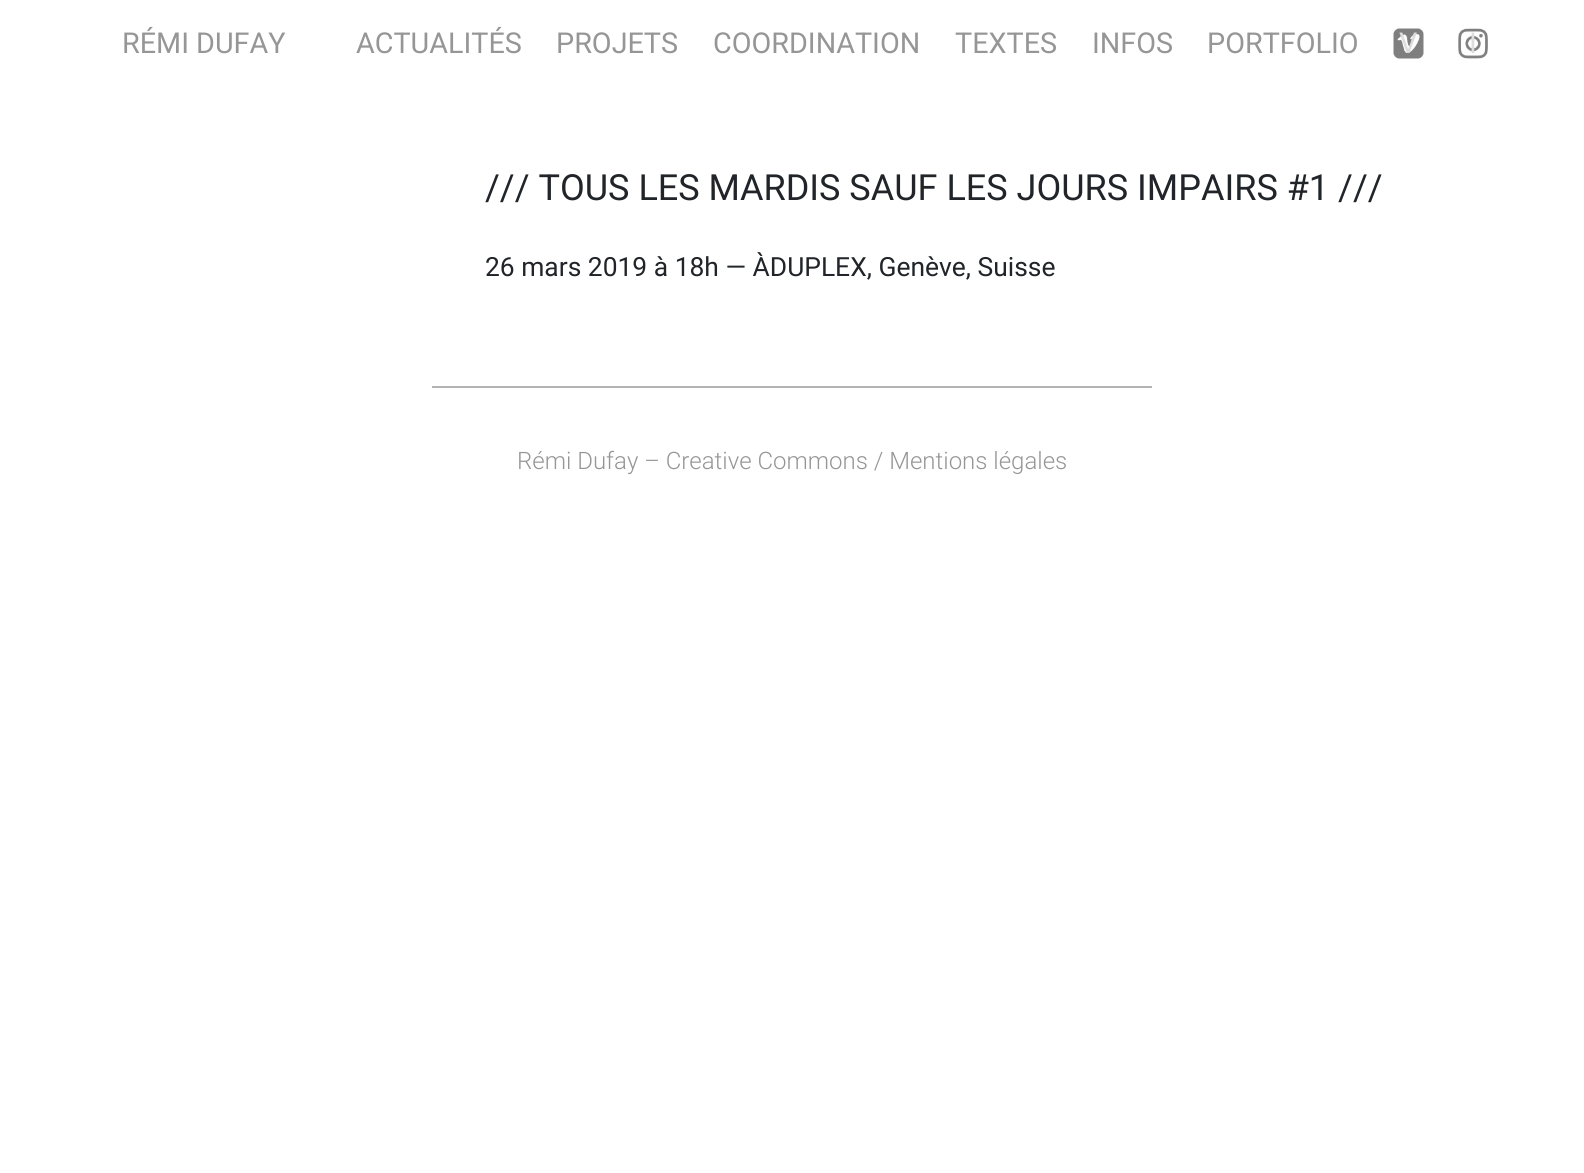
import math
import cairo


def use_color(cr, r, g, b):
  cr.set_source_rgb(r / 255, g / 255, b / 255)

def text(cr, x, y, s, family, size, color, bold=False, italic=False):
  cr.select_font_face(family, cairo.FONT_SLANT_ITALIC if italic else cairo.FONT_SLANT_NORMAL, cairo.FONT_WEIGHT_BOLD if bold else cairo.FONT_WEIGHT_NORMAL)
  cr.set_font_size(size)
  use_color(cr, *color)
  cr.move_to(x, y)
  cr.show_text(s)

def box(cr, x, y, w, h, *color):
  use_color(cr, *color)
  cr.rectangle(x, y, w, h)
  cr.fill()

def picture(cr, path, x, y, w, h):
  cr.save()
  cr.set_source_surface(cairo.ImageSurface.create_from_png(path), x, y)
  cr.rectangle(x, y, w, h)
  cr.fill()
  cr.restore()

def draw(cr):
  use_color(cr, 255, 255, 255)
  cr.paint()
  picture(cr, "img_01.png", 1393, 28, 31, 31)
  picture(cr, "img_02.png", 1458, 28, 30, 31)
  box(cr, 432, 386, 720, 2, 180, 180, 180)
  text(cr, 122, 53, "RÉMI DUFAY", "Roboto", 28.75, (150, 150, 150))
  text(cr, 356, 53, "ACTUALITÉS", "Roboto", 28.75, (150, 150, 150))
  text(cr, 556, 53, "PROJETS", "Roboto", 28.75, (150, 150, 150))
  text(cr, 713, 53, "COORDINATION", "Roboto", 28.75, (150, 150, 150))
  text(cr, 955, 53, "TEXTES", "Roboto", 28.75, (150, 150, 150))
  text(cr, 1092, 53, "INFOS", "Roboto", 28.75, (150, 150, 150))
  text(cr, 1207, 53, "PORTFOLIO", "Roboto", 28.75, (150, 150, 150))
  text(cr, 1399, 53, "V", "Roboto", 28.75, (221, 221, 222))
  text(cr, 1469, 53, "I", "Roboto", 28.75, (221, 221, 222))
  text(cr, 485, 200, "/// TOUS LES MARDIS SAUF LES JOURS IMPAIRS #1 ///", "Roboto", 36, (33, 37, 41))
  text(cr, 485, 276, "26 mars 2019 à 18h — ÀDUPLEX, Genève, Suisse", "Roboto", 26.4, (33, 37, 41))
  text(cr, 517, 469, "Rémi Dufay – Creative Commons / Mentions légales", "Roboto Light", 24, (150, 150, 150))


surface = cairo.ImageSurface(cairo.FORMAT_RGB24, 1584, 1173)
cr = cairo.Context(surface)
options = cairo.FontOptions()
options.set_hint_metrics(cairo.HINT_METRICS_OFF)
options.set_hint_style(cairo.HINT_STYLE_NONE)
cr.set_font_options(options)
cr.set_miter_limit(4)
draw(cr)
surface.write_to_png("out.png")
